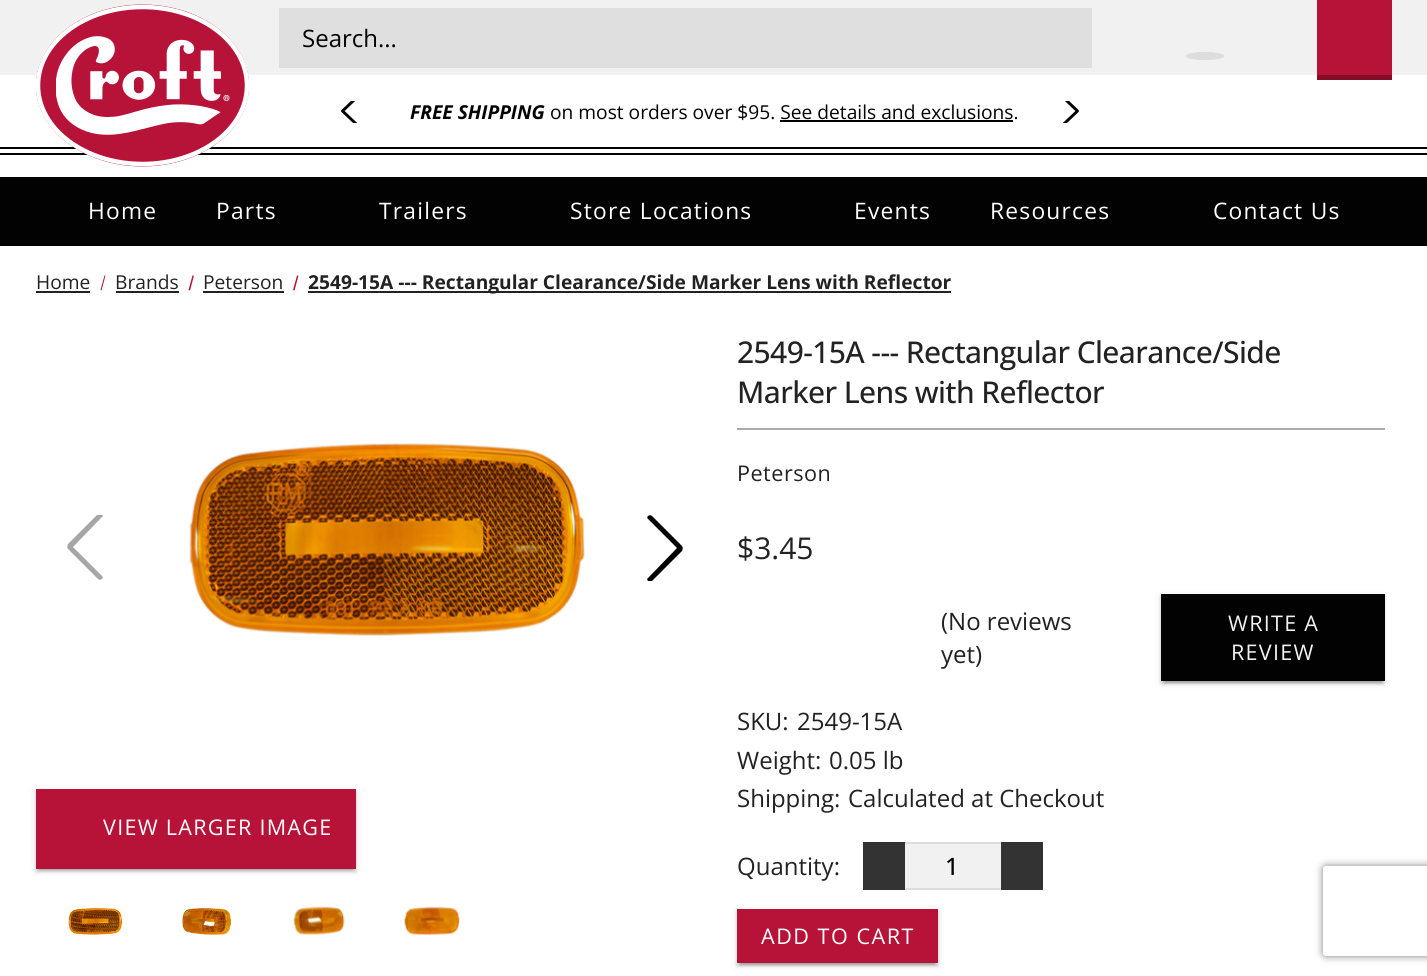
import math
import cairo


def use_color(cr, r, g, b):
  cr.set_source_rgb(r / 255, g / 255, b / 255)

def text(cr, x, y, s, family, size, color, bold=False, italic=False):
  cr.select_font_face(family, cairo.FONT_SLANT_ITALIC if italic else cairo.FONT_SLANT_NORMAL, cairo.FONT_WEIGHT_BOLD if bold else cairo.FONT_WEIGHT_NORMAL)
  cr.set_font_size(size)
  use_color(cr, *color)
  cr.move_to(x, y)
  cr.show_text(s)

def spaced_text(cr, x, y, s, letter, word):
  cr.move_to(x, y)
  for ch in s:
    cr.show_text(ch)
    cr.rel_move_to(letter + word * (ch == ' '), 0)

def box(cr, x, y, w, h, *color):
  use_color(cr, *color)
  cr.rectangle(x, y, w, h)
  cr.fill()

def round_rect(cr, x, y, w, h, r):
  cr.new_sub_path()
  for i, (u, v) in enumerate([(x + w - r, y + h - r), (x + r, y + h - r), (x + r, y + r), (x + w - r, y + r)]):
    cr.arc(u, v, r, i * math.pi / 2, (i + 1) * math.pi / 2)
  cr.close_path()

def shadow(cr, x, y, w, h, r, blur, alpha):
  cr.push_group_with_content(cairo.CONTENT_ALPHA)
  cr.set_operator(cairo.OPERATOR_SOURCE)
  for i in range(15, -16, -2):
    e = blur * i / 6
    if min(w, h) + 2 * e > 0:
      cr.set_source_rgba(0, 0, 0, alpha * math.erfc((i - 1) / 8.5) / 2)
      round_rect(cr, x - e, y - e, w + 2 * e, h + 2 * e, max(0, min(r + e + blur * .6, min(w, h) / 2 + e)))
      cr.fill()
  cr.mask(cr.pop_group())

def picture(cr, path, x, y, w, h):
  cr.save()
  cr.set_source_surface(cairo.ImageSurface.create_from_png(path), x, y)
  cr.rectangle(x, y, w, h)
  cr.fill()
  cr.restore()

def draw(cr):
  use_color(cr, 255, 255, 255)
  cr.paint()
  box(cr, 0, 0, 1427, 75, 241, 241, 241)
  box(cr, 0, 147, 1427, 2, 2, 2, 2)
  box(cr, 0, 153, 1427, 2, 2, 2, 2)
  use_color(cr, 183, 18, 55)
  cr.new_path()
  cr.move_to(142.5, 4.5)
  cr.curve_to(201.5, 4.5, 249, 41, 249, 85.5)
  cr.curve_to(249, 130, 201.5, 166.5, 142.5, 166.5)
  cr.curve_to(83.5, 166.5, 36, 130, 36, 85.5)
  cr.curve_to(36, 41, 83.5, 4.5, 142.5, 4.5)
  cr.close_path()
  cr.fill()
  cr.new_path()
  cr.move_to(142.5, 7)
  cr.curve_to(200, 7, 247, 42, 247, 85.5)
  cr.curve_to(247, 129, 200, 164, 142.5, 164)
  cr.curve_to(85, 164, 38, 129, 38, 85.5)
  cr.curve_to(38, 42, 85, 7, 142.5, 7)
  cr.close_path()
  use_color(cr, 255, 255, 255)
  cr.set_line_width(4.5)
  cr.stroke()
  picture(cr, "img_01.png", 56, 36, 174, 99)
  box(cr, 279, 8, 813, 60, 223, 223, 223)
  box(cr, 1317, 0, 75, 75, 183, 18, 55)
  box(cr, 1317, 75, 75, 5, 133, 13, 40)
  use_color(cr, 221, 221, 221)
  cr.new_path()
  cr.move_to(1205, 52)
  cr.curve_to(1215.5, 52, 1224, 54, 1224, 56)
  cr.curve_to(1224, 58, 1215.5, 60, 1205, 60)
  cr.curve_to(1194.5, 60, 1186, 58, 1186, 56)
  cr.curve_to(1186, 54, 1194.5, 52, 1205, 52)
  cr.close_path()
  cr.fill()
  cr.new_path()
  cr.move_to(1205, 53)
  cr.curve_to(1215, 53, 1223, 54.5, 1223, 56)
  cr.curve_to(1223, 58, 1215, 59, 1205, 59)
  cr.curve_to(1195.5, 59, 1187, 58, 1187, 56)
  cr.curve_to(1187, 54.5, 1195.5, 53, 1205, 53)
  cr.close_path()
  cr.set_line_width(1.5)
  cr.stroke()
  cr.save()
  cr.rectangle(341, 101, 34, 22)
  cr.clip()
  cr.new_path()
  cr.move_to(372.5, 82.5)
  cr.line_to(342.5, 111)
  cr.line_to(372.5, 139.5)
  use_color(cr, 2, 2, 2)
  cr.set_line_width(2.9)
  cr.set_line_cap(cairo.LINE_CAP_ROUND)
  cr.set_line_join(cairo.LINE_JOIN_ROUND)
  cr.stroke()
  cr.restore()
  box(cr, 780, 120, 233, 2, 2, 2, 2)
  cr.save()
  cr.rectangle(1046, 101, 34, 22)
  cr.clip()
  cr.new_path()
  cr.move_to(1047.5, 82.5)
  cr.line_to(1077.5, 111)
  cr.line_to(1047.5, 139.5)
  cr.set_line_width(2.9)
  cr.set_line_cap(cairo.LINE_CAP_ROUND)
  cr.set_line_join(cairo.LINE_JOIN_ROUND)
  cr.stroke()
  cr.restore()
  box(cr, 0, 177, 1427, 69, 2, 2, 2)
  box(cr, 36, 291, 54, 2, 34, 34, 34)
  use_color(cr, 183, 18, 55)
  cr.new_path()
  cr.move_to(104.5, 275.5)
  cr.line_to(105.5, 275.5)
  cr.line_to(101.5, 290.5)
  cr.line_to(100.5, 290)
  cr.close_path()
  cr.fill()
  box(cr, 116, 291, 63, 2, 34, 34, 34)
  use_color(cr, 183, 18, 55)
  cr.new_path()
  cr.move_to(192.5, 275.5)
  cr.line_to(194, 275.5)
  cr.line_to(190, 290.5)
  cr.line_to(188.5, 290)
  cr.close_path()
  cr.fill()
  box(cr, 203, 291, 81, 2, 34, 34, 34)
  use_color(cr, 183, 18, 55)
  cr.new_path()
  cr.move_to(297, 275.5)
  cr.line_to(298.5, 275.5)
  cr.line_to(294.5, 290.5)
  cr.line_to(293, 290)
  cr.close_path()
  cr.fill()
  box(cr, 308, 291, 643, 2, 34, 34, 34)
  box(cr, 737, 428, 648, 2, 170, 170, 170)
  cr.save()
  cr.rectangle(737, 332, 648, 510)
  cr.clip()
  use_color(cr, 0, 0, 0)
  shadow(cr, 1161, 596, 224, 87, 0, 4, 0.12)
  cr.restore()
  use_color(cr, 0, 0, 0)
  shadow(cr, 1164, 602, 218, 81, 0, 1, 0.2)
  shadow(cr, 1161, 597, 224, 87, 0, 1.5, 0.14)
  box(cr, 1161, 594, 224, 87, 2, 2, 2)
  cr.save()
  cr.rectangle(65, 515, 40, 66)
  cr.clip()
  use_color(cr, 166, 166, 166)
  cr.new_path()
  cr.move_to(102, 514)
  cr.curve_to(103, 515, 103, 517, 102, 517)
  cr.line_to(73, 547)
  cr.line_to(102, 576)
  cr.curve_to(103, 577, 103, 578, 102, 579)
  cr.curve_to(101, 580, 99, 580, 98, 579)
  cr.line_to(68, 549)
  cr.curve_to(67, 548, 67, 546, 68, 544)
  cr.line_to(98, 514)
  cr.curve_to(99, 513, 101, 513, 102, 514)
  cr.close_path()
  cr.fill()
  cr.restore()
  picture(cr, "img_02.png", 189, 443, 396, 193)
  cr.save()
  cr.rectangle(645, 515, 41, 66)
  cr.clip()
  cr.new_path()
  cr.move_to(648, 581)
  cr.curve_to(647, 580, 647, 578, 648, 578)
  cr.line_to(677, 548)
  cr.line_to(648, 519)
  cr.curve_to(647, 518, 647, 517, 648, 516)
  cr.curve_to(649, 515, 651, 515, 652, 516)
  cr.line_to(682, 546)
  cr.curve_to(683, 547, 683, 549, 682, 551)
  cr.line_to(652, 581)
  cr.curve_to(651, 582, 649, 582, 648, 581)
  cr.close_path()
  cr.fill()
  cr.restore()
  use_color(cr, 0, 0, 0)
  shadow(cr, 36, 791, 320, 79, 0, 4, 0.12)
  shadow(cr, 39, 797, 314, 73, 0, 1, 0.2)
  shadow(cr, 36, 792, 320, 80, 0, 1.5, 0.14)
  box(cr, 36, 789, 320, 80, 183, 18, 55)
  picture(cr, "img_03.png", 68, 908, 55, 27)
  picture(cr, "img_04.png", 182, 908, 49, 27)
  picture(cr, "img_05.png", 293, 906, 52, 29)
  picture(cr, "img_06.png", 404, 906, 56, 29)
  box(cr, 863, 842, 42, 48, 51, 51, 51)
  box(cr, 905, 844, 96, 44, 241, 241, 241)
  box(cr, 905, 842, 96, 2, 221, 221, 221)
  box(cr, 905, 888, 96, 2, 221, 221, 221)
  box(cr, 1001, 842, 42, 48, 51, 51, 51)
  use_color(cr, 0, 0, 0)
  shadow(cr, 737, 911, 201, 54, 0, 4, 0.12)
  shadow(cr, 740, 917, 195, 48, 0, 1, 0.2)
  shadow(cr, 737, 912, 201, 54, 0, 1.5, 0.14)
  box(cr, 737, 909, 201, 54, 183, 18, 55)
  cr.save()
  cr.set_fill_rule(cairo.FILL_RULE_EVEN_ODD)
  cr.new_path()
  cr.move_to(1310, 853)
  cr.line_to(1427, 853)
  cr.line_to(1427, 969)
  cr.line_to(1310, 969)
  cr.close_path()
  cr.move_to(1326, 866)
  cr.line_to(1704, 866)
  cr.curve_to(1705.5, 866, 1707, 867.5, 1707, 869)
  cr.line_to(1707, 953)
  cr.curve_to(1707, 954.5, 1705.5, 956, 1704, 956)
  cr.line_to(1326, 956)
  cr.curve_to(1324.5, 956, 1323, 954.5, 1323, 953)
  cr.line_to(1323, 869)
  cr.curve_to(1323, 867.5, 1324.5, 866, 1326, 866)
  cr.close_path()
  cr.clip()
  use_color(cr, 128, 128, 128)
  shadow(cr, 1323, 866, 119, 90, 3, 4, 1)
  cr.restore()
  text(cr, 302, 47, "Search...", "Open Sans", 24, (2, 2, 2))
  text(cr, 410, 119, "FREE SHIPPING", "Open Sans", 19.2, (2, 2, 2), bold=True, italic=True)
  text(cr, 550, 119, "on most orders over $95. See details and exclusions.", "Open Sans", 19.2, (2, 2, 2))
  cr.set_font_size(22.75)
  use_color(cr, 255, 255, 255)
  spaced_text(cr, 88, 219, "Home", 1.25, 0)
  spaced_text(cr, 216, 219, "Parts", 1.25, 0)
  spaced_text(cr, 379, 219, "Trailers", 1.25, 0)
  spaced_text(cr, 570, 219, "Store Locations", 1.25, 0)
  spaced_text(cr, 854, 219, "Events", 1.25, 0)
  spaced_text(cr, 990, 219, "Resources", 1.25, 0)
  spaced_text(cr, 1213, 219, "Contact Us", 1.25, 0)
  text(cr, 36, 289, "Home", "Open Sans", 19.2, (34, 34, 34))
  text(cr, 115, 289, "Brands", "Open Sans", 19.2, (34, 34, 34))
  text(cr, 203, 289, "Peterson", "Open Sans", 19.2, (34, 34, 34))
  text(cr, 308, 289, "2549-15A --- Rectangular Clearance/Side Marker Lens with Reflector", "Open Sans", 19.2, (34, 34, 34), bold=True)
  cr.select_font_face("Open Sans Medium")
  cr.set_font_size(30)
  spaced_text(cr, 737, 363, "2549-15A --- Rectangular Clearance/Side", -0.6, 0)
  spaced_text(cr, 737, 403, "Marker Lens with Reflector", -0.6, 0)
  cr.select_font_face("Open Sans")
  cr.set_font_size(21.6)
  spaced_text(cr, 737, 481, "Peterson", 0.5, 0)
  text(cr, 737, 559, "$3.45", "Open Sans", 30, (34, 34, 34))
  text(cr, 941, 630, "(No reviews", "Open Sans", 24, (34, 34, 34))
  text(cr, 941, 663, "yet)", "Open Sans", 24, (34, 34, 34))
  cr.set_font_size(21.6)
  use_color(cr, 241, 241, 241)
  spaced_text(cr, 1228, 631, "WRITE A", 1.25, 0)
  spaced_text(cr, 1231, 660, "REVIEW", 1.25, 0)
  text(cr, 737, 730, "SKU:", "Open Sans", 24, (34, 34, 34))
  text(cr, 797, 730, "2549-15A", "Open Sans", 24, (34, 34, 34))
  text(cr, 737, 769, "Weight:", "Open Sans", 24, (34, 34, 34))
  text(cr, 829, 769, "0.05 lb", "Open Sans", 24, (34, 34, 34))
  text(cr, 737, 807, "Shipping:", "Open Sans", 24, (34, 34, 34))
  text(cr, 848, 807, "Calculated at Checkout", "Open Sans", 24, (34, 34, 34))
  cr.set_font_size(21.6)
  use_color(cr, 255, 255, 255)
  spaced_text(cr, 103, 835, "VIEW LARGER IMAGE", 1.25, 0)
  text(cr, 737, 875, "Quantity:", "Open Sans", 24, (34, 34, 34))
  text(cr, 945, 875, "1", "Open Sans Medium", 24, (2, 2, 2))
  cr.select_font_face("Open Sans")
  cr.set_font_size(21.6)
  use_color(cr, 255, 255, 255)
  spaced_text(cr, 761, 944, "ADD TO CART", 1.5, 0)


surface = cairo.ImageSurface(cairo.FORMAT_RGB24, 1427, 976)
cr = cairo.Context(surface)
options = cairo.FontOptions()
options.set_hint_metrics(cairo.HINT_METRICS_OFF)
options.set_hint_style(cairo.HINT_STYLE_NONE)
cr.set_font_options(options)
cr.set_miter_limit(4)
draw(cr)
surface.write_to_png("out.png")
